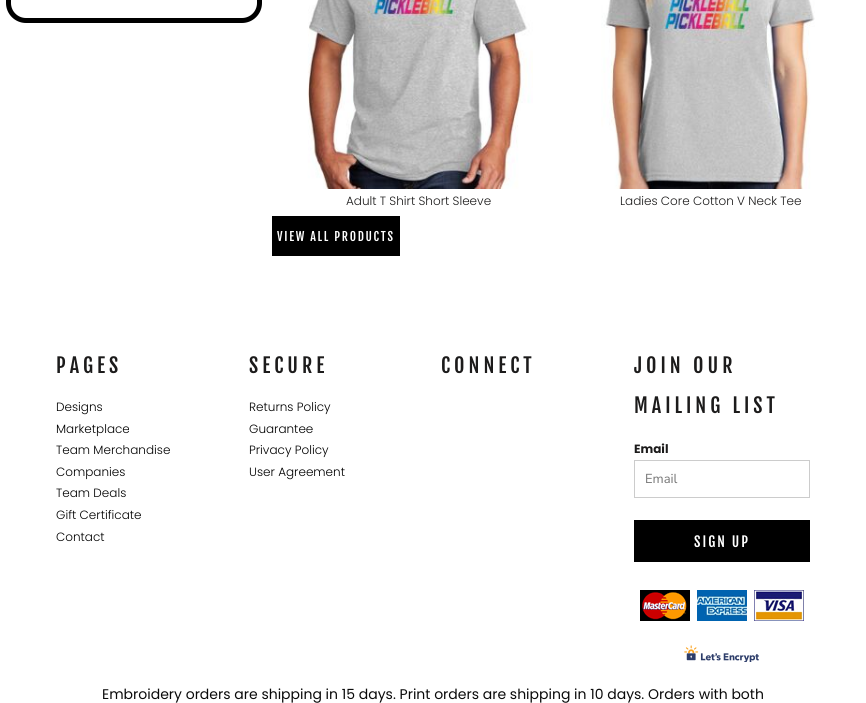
import math
import cairo


def use_color(cr, r, g, b):
  cr.set_source_rgb(r / 255, g / 255, b / 255)

def text(cr, x, y, s, family, size, color, bold=False, italic=False):
  cr.select_font_face(family, cairo.FONT_SLANT_ITALIC if italic else cairo.FONT_SLANT_NORMAL, cairo.FONT_WEIGHT_BOLD if bold else cairo.FONT_WEIGHT_NORMAL)
  cr.set_font_size(size)
  use_color(cr, *color)
  cr.move_to(x, y)
  cr.show_text(s)

def spaced_text(cr, x, y, s, letter, word):
  cr.move_to(x, y)
  for ch in s:
    cr.show_text(ch)
    cr.rel_move_to(letter + word * (ch == ' '), 0)

def box(cr, x, y, w, h, *color):
  use_color(cr, *color)
  cr.rectangle(x, y, w, h)
  cr.fill()

def round_rect(cr, x, y, w, h, r):
  cr.new_sub_path()
  for i, (u, v) in enumerate([(x + w - r, y + h - r), (x + r, y + h - r), (x + r, y + r), (x + w - r, y + r)]):
    cr.arc(u, v, r, i * math.pi / 2, (i + 1) * math.pi / 2)
  cr.close_path()

def picture(cr, path, x, y, w, h):
  cr.save()
  cr.set_source_surface(cairo.ImageSurface.create_from_png(path), x, y)
  cr.rectangle(x, y, w, h)
  cr.fill()
  cr.restore()

def draw(cr):
  use_color(cr, 255, 255, 255)
  cr.paint()
  round_rect(cr, 8.5, -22.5, 251, 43, 17.5)
  use_color(cr, 0, 0, 0)
  cr.set_line_width(5)
  cr.stroke()
  picture(cr, "img_01.png", 307, 0, 226, 189)
  picture(cr, "img_02.png", 601, 0, 214, 189)
  box(cr, 272, 216, 128, 40, 0, 0, 0)
  cr.rectangle(634.5, 460.5, 175, 37)
  use_color(cr, 204, 204, 204)
  cr.set_line_width(1)
  cr.stroke()
  box(cr, 634, 520, 176, 42, 0, 0, 0)
  picture(cr, "img_03.png", 640, 590, 50, 31)
  picture(cr, "img_04.png", 697, 590, 50, 31)
  picture(cr, "img_05.png", 754, 590, 50, 31)
  picture(cr, "img_06.png", 684, 645, 75, 17)
  text(cr, 346, 205, "Adult T Shirt Short Sleeve", "Poppins Light", 12, (28, 27, 27))
  text(cr, 620, 205, "Ladies Core Cotton V Neck Tee", "Poppins Light", 12, (28, 27, 27))
  cr.select_font_face("Fjalla One")
  use_color(cr, 255, 255, 255)
  spaced_text(cr, 277, 241, "VIEW ALL PRODUCTS", 1.7, 0)
  cr.set_font_size(20)
  use_color(cr, 28, 27, 27)
  spaced_text(cr, 56, 373, "PAGES", 4, 0)
  text(cr, 56, 411, "Designs", "Poppins Light", 12, (0, 0, 0))
  text(cr, 56, 433, "Marketplace", "Poppins Light", 12, (0, 0, 0))
  text(cr, 56, 454, "Team Merchandise", "Poppins Light", 12, (0, 0, 0))
  text(cr, 56, 476, "Companies", "Poppins Light", 12, (0, 0, 0))
  text(cr, 56, 497, "Team Deals", "Poppins Light", 12, (0, 0, 0))
  text(cr, 56, 519, "Gift Certificate", "Poppins Light", 12, (0, 0, 0))
  text(cr, 56, 541, "Contact", "Poppins Light", 12, (0, 0, 0))
  cr.select_font_face("Fjalla One")
  cr.set_font_size(20)
  use_color(cr, 28, 27, 27)
  spaced_text(cr, 249, 373, "SECURE", 4, 0)
  text(cr, 249, 411, "Returns Policy", "Poppins Light", 12, (0, 0, 0))
  text(cr, 249, 433, "Guarantee", "Poppins Light", 12, (0, 0, 0))
  text(cr, 249, 454, "Privacy Policy", "Poppins Light", 12, (0, 0, 0))
  text(cr, 249, 476, "User Agreement", "Poppins Light", 12, (0, 0, 0))
  cr.select_font_face("Fjalla One")
  cr.set_font_size(20)
  use_color(cr, 28, 27, 27)
  spaced_text(cr, 441, 373, "CONNECT", 4, 0)
  spaced_text(cr, 634, 373, "JOIN OUR", 4, 0)
  spaced_text(cr, 634, 413, "MAILING LIST", 4, 0)
  text(cr, 634, 453, "Email", "Poppins", 12, (28, 27, 27), bold=True)
  text(cr, 645, 483, "Email", "Nunito Sans", 13, (117, 117, 117))
  cr.select_font_face("Fjalla One")
  cr.set_font_size(14)
  use_color(cr, 255, 255, 255)
  spaced_text(cr, 694, 547, "SIGN UP", 2, 0)
  text(cr, 102, 699, "Embroidery orders are shipping in 15 days. Print orders are shipping in 10 days. Orders with both", "Poppins", 14, (10, 10, 10))


surface = cairo.ImageSurface(cairo.FORMAT_RGB24, 866, 703)
cr = cairo.Context(surface)
options = cairo.FontOptions()
options.set_hint_metrics(cairo.HINT_METRICS_OFF)
options.set_hint_style(cairo.HINT_STYLE_NONE)
cr.set_font_options(options)
cr.set_miter_limit(4)
draw(cr)
surface.write_to_png("out.png")
